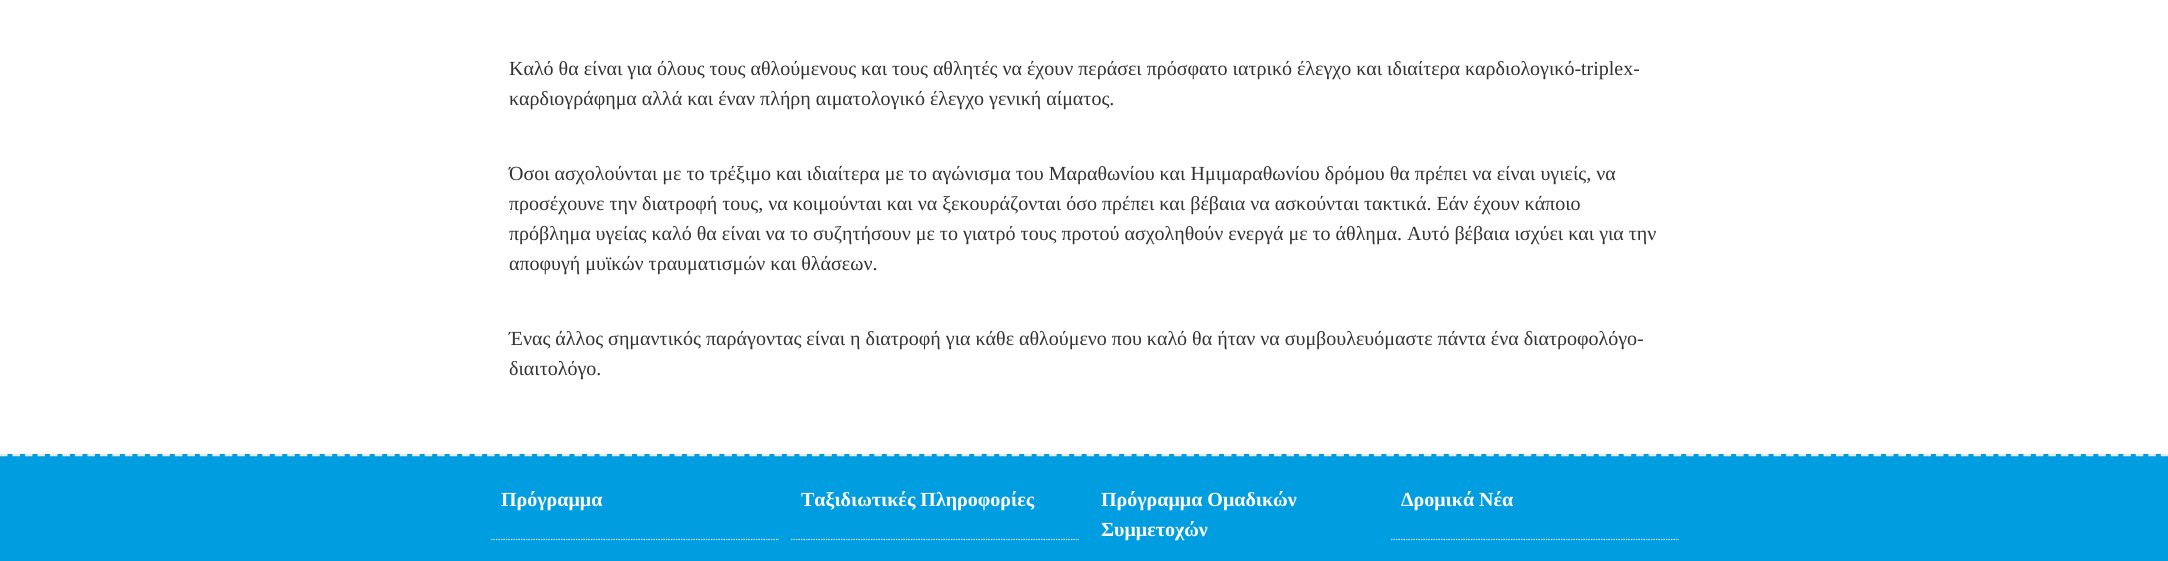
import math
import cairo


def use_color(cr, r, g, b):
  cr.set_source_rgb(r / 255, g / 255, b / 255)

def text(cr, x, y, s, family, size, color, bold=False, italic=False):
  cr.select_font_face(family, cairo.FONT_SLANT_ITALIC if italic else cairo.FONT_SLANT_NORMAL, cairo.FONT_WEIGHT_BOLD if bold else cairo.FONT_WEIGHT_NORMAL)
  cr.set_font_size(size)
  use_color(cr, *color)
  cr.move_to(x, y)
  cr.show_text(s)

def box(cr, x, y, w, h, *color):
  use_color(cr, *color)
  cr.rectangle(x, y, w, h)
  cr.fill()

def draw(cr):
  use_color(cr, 255, 255, 255)
  cr.paint()
  box(cr, 0, 454, 2168, 107, 0, 158, 225)
  cr.new_path()
  cr.move_to(0, 455)
  cr.line_to(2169, 455)
  use_color(cr, 233, 233, 233)
  cr.set_line_width(2.5)
  cr.set_dash([7.5, 4.99])
  cr.stroke()
  cr.new_path()
  cr.move_to(491, 539.5)
  cr.line_to(779, 539.5)
  use_color(cr, 255, 255, 255)
  cr.set_line_width(1.2)
  cr.set_dash([1.25, 1.25])
  cr.stroke()
  cr.new_path()
  cr.move_to(791, 539.5)
  cr.line_to(1079, 539.5)
  cr.stroke()
  cr.new_path()
  cr.move_to(1391, 539.5)
  cr.line_to(1679, 539.5)
  cr.stroke()
  text(cr, 509, 75, "Καλό θα είναι για όλους τους αθλούμενους και τους αθλητές να έχουν περάσει πρόσφατο ιατρικό έλεγχο και ιδιαίτερα καρδιολογικό-triplex-", "Liberation Serif", 20, (51, 51, 51))
  text(cr, 509, 105, "καρδιογράφημα αλλά και έναν πλήρη αιματολογικό έλεγχο γενική αίματος.", "Liberation Serif", 20, (51, 51, 51))
  text(cr, 509, 180, "Όσοι ασχολούνται με το τρέξιμο και ιδιαίτερα με το αγώνισμα του Μαραθωνίου και Ημιμαραθωνίου δρόμου θα πρέπει να είναι υγιείς, να", "Liberation Serif", 20, (51, 51, 51))
  text(cr, 509, 210, "προσέχουνε την διατροφή τους, να κοιμούνται και να ξεκουράζονται όσο πρέπει και βέβαια να ασκούνται τακτικά. Εάν έχουν κάποιο", "Liberation Serif", 20, (51, 51, 51))
  text(cr, 509, 240, "πρόβλημα υγείας καλό θα είναι να το συζητήσουν με το γιατρό τους προτού ασχοληθούν ενεργά με το άθλημα. Αυτό βέβαια ισχύει και για την", "Liberation Serif", 20, (51, 51, 51))
  text(cr, 509, 270, "αποφυγή μυϊκών τραυματισμών και θλάσεων.", "Liberation Serif", 20, (51, 51, 51))
  text(cr, 509, 345, "Ένας άλλος σημαντικός παράγοντας είναι η διατροφή για κάθε αθλούμενο που καλό θα ήταν να συμβουλευόμαστε πάντα ένα διατροφολόγο-", "Liberation Serif", 20, (51, 51, 51))
  text(cr, 509, 375, "διαιτολόγο.", "Liberation Serif", 20, (51, 51, 51))
  text(cr, 501, 506, "Πρόγραμμα", "Liberation Serif", 20, (255, 255, 255), bold=True)
  text(cr, 801, 506, "Ταξιδιωτικές Πληροφορίες", "Liberation Serif", 20, (255, 255, 255), bold=True)
  text(cr, 1101, 506, "Πρόγραμμα Ομαδικών", "Liberation Serif", 20, (255, 255, 255), bold=True)
  text(cr, 1101, 536, "Συμμετοχών", "Liberation Serif", 20, (255, 255, 255), bold=True)
  text(cr, 1401, 506, "Δρομικά Νέα", "Liberation Serif", 20, (255, 255, 255), bold=True)


surface = cairo.ImageSurface(cairo.FORMAT_RGB24, 2168, 561)
cr = cairo.Context(surface)
options = cairo.FontOptions()
options.set_hint_metrics(cairo.HINT_METRICS_OFF)
options.set_hint_style(cairo.HINT_STYLE_NONE)
cr.set_font_options(options)
cr.set_miter_limit(4)
draw(cr)
surface.write_to_png("out.png")
